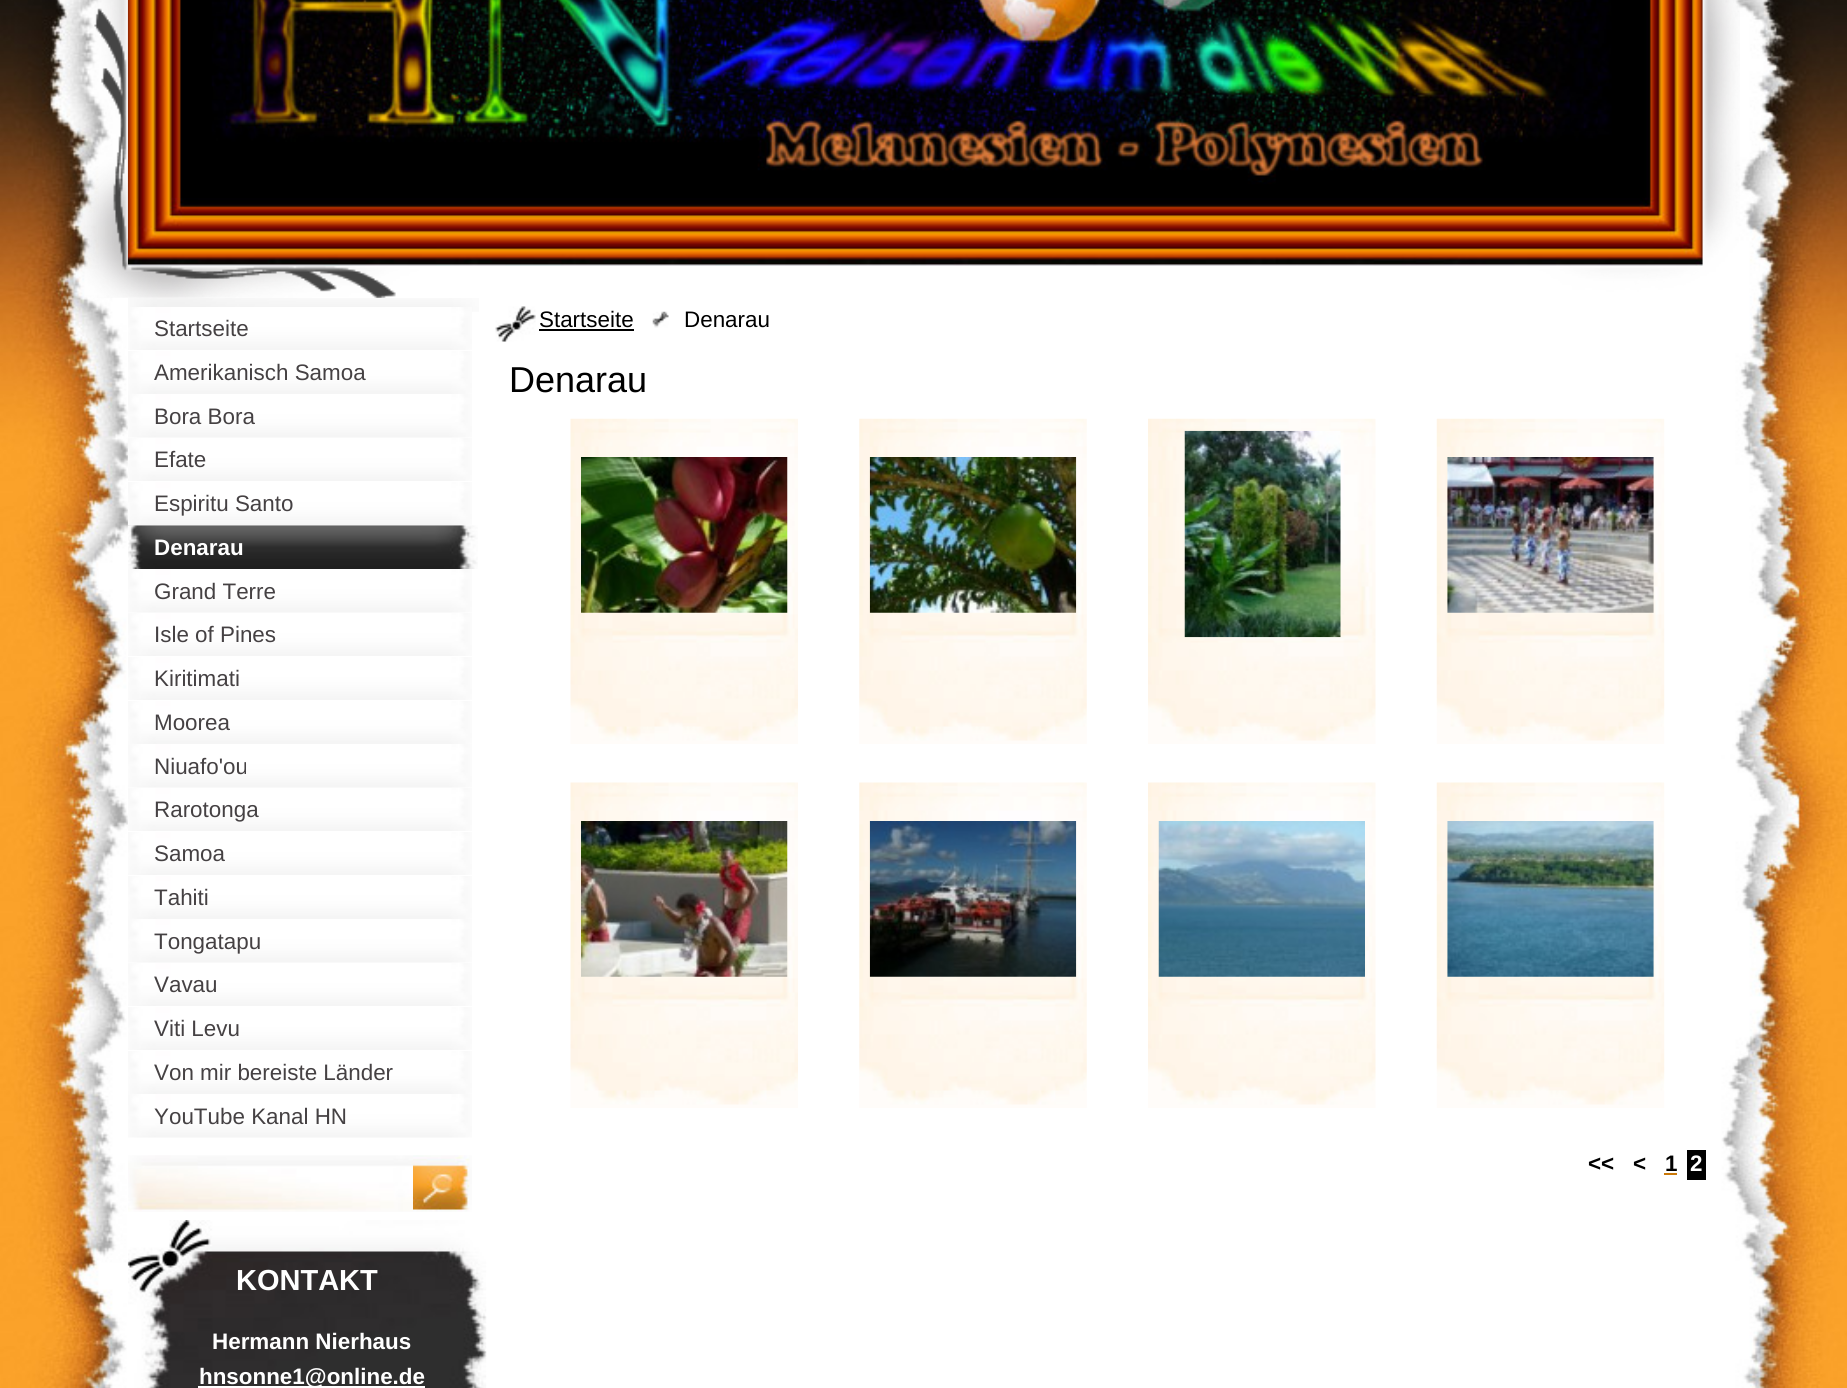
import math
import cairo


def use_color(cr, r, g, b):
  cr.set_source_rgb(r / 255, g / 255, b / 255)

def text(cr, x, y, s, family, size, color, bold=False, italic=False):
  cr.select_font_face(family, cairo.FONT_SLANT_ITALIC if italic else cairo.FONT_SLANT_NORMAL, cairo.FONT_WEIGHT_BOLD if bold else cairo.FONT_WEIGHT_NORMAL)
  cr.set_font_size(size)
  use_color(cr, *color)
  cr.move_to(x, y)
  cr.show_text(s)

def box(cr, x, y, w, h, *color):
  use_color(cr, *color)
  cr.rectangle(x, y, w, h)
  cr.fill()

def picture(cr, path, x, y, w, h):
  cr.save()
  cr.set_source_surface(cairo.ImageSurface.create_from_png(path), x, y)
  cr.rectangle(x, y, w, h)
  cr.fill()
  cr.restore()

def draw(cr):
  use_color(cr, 255, 255, 255)
  cr.paint()
  picture(cr, "img_01.png", 0, 450, 1847, 938)
  picture(cr, "img_02.png", 0, 0, 1847, 450)
  picture(cr, "img_03.png", 75, 0, 1665, 298)
  picture(cr, "img_04.png", 127, 0, 1576, 266)
  picture(cr, "img_05.png", 128, 298, 351, 14)
  picture(cr, "img_06.png", 128, 307, 344, 43)
  picture(cr, "img_07.png", 128, 351, 344, 43)
  picture(cr, "img_08.png", 128, 394, 344, 44)
  picture(cr, "img_09.png", 128, 438, 344, 43)
  picture(cr, "img_10.png", 127, 482, 345, 43)
  picture(cr, "img_11.png", 128, 525, 350, 44)
  picture(cr, "img_12.png", 128, 569, 344, 44)
  picture(cr, "img_09.png", 128, 613, 344, 43)
  picture(cr, "img_06.png", 128, 657, 344, 43)
  picture(cr, "img_07.png", 128, 701, 344, 43)
  picture(cr, "img_12.png", 128, 744, 344, 44)
  picture(cr, "img_09.png", 128, 788, 344, 43)
  picture(cr, "img_06.png", 128, 832, 344, 43)
  picture(cr, "img_07.png", 128, 876, 344, 43)
  picture(cr, "img_12.png", 128, 919, 344, 44)
  picture(cr, "img_09.png", 128, 963, 344, 43)
  picture(cr, "img_06.png", 128, 1007, 344, 43)
  picture(cr, "img_07.png", 128, 1051, 344, 43)
  picture(cr, "img_12.png", 128, 1094, 344, 44)
  picture(cr, "img_13.png", 128, 1155, 285, 57)
  picture(cr, "img_14.png", 413, 1155, 59, 57)
  picture(cr, "img_15.png", 127, 1220, 360, 168)
  box(cr, 198, 1386, 227, 2, 255, 255, 255)
  picture(cr, "img_16.png", 495, 306, 41, 36)
  box(cr, 539, 329, 95, 2, 0, 0, 0)
  picture(cr, "img_17.png", 652, 311, 17, 17)
  picture(cr, "img_18.png", 570, 418, 228, 326)
  picture(cr, "img_19.png", 581, 457, 207, 156)
  picture(cr, "img_20.png", 859, 418, 228, 326)
  picture(cr, "img_21.png", 869, 457, 208, 156)
  picture(cr, "img_22.png", 1148, 418, 228, 326)
  picture(cr, "img_23.png", 1184, 430, 157, 208)
  picture(cr, "img_24.png", 1436, 418, 229, 326)
  picture(cr, "img_25.png", 1447, 457, 207, 156)
  picture(cr, "img_26.png", 570, 782, 228, 326)
  picture(cr, "img_27.png", 581, 821, 207, 156)
  picture(cr, "img_28.png", 859, 782, 228, 326)
  picture(cr, "img_29.png", 869, 821, 208, 156)
  picture(cr, "img_30.png", 1148, 782, 228, 326)
  picture(cr, "img_31.png", 1158, 821, 207, 156)
  picture(cr, "img_32.png", 1436, 782, 229, 326)
  picture(cr, "img_33.png", 1447, 821, 207, 156)
  box(cr, 1664, 1173, 13, 2, 202, 120, 8)
  box(cr, 1687, 1150, 19, 30, 0, 0, 0)
  text(cr, 154, 336, "Startseite", "Liberation Sans", 22.4, (69, 65, 67))
  text(cr, 154, 380, "Amerikanisch Samoa", "Liberation Sans", 22.4, (69, 65, 67))
  text(cr, 154, 424, "Bora Bora", "Liberation Sans", 22.4, (69, 65, 67))
  text(cr, 154, 467, "Efate", "Liberation Sans", 22.4, (69, 65, 67))
  text(cr, 154, 511, "Espiritu Santo", "Liberation Sans", 22.4, (69, 65, 67))
  text(cr, 154, 555, "Denarau", "Liberation Sans", 22.4, (255, 255, 255), bold=True)
  text(cr, 154, 599, "Grand Terre", "Liberation Sans", 22.4, (69, 65, 67))
  text(cr, 154, 642, "Isle of Pines", "Liberation Sans", 22.4, (69, 65, 67))
  text(cr, 154, 686, "Kiritimati", "Liberation Sans", 22.4, (69, 65, 67))
  text(cr, 154, 730, "Moorea", "Liberation Sans", 22.4, (69, 65, 67))
  text(cr, 154, 774, "Niuafo'ou", "Liberation Sans", 22.4, (69, 65, 67))
  text(cr, 154, 817, "Rarotonga", "Liberation Sans", 22.4, (69, 65, 67))
  text(cr, 154, 861, "Samoa", "Liberation Sans", 22.4, (69, 65, 67))
  text(cr, 154, 905, "Tahiti", "Liberation Sans", 22.4, (69, 65, 67))
  text(cr, 154, 949, "Tongatapu", "Liberation Sans", 22.4, (69, 65, 67))
  text(cr, 154, 992, "Vavau", "Liberation Sans", 22.4, (69, 65, 67))
  text(cr, 154, 1036, "Viti Levu", "Liberation Sans", 22.4, (69, 65, 67))
  text(cr, 154, 1080, "Von mir bereiste Länder", "Liberation Sans", 22.4, (69, 65, 67))
  text(cr, 154, 1124, "YouTube Kanal HN", "Liberation Sans", 22.4, (69, 65, 67))
  text(cr, 236, 1290, "KONTAKT", "Liberation Sans", 29, (255, 255, 255), bold=True)
  text(cr, 212, 1349, "Hermann Nierhaus", "Liberation Sans", 22.4, (255, 255, 255), bold=True)
  text(cr, 199, 1384, "hnsonne1@online.de", "Liberation Sans", 22.4, (255, 255, 255), bold=True)
  text(cr, 539, 327, "Startseite", "Liberation Sans", 22.4, (0, 0, 0))
  text(cr, 684, 327, "Denarau", "Liberation Sans", 22.4, (0, 0, 0))
  text(cr, 509, 392, "Denarau", "Liberation Sans", 36, (0, 0, 0))
  text(cr, 1588, 1171, "<<", "Liberation Sans", 22.4, (0, 0, 0), bold=True)
  text(cr, 1633, 1171, "<", "Liberation Sans", 22.4, (0, 0, 0), bold=True)
  text(cr, 1665, 1171, "1", "Liberation Sans", 22.4, (0, 0, 0), bold=True)
  text(cr, 1690, 1171, "2", "Liberation Sans", 22.4, (255, 255, 255), bold=True)


surface = cairo.ImageSurface(cairo.FORMAT_RGB24, 1847, 1388)
cr = cairo.Context(surface)
options = cairo.FontOptions()
options.set_hint_metrics(cairo.HINT_METRICS_OFF)
options.set_hint_style(cairo.HINT_STYLE_NONE)
cr.set_font_options(options)
cr.set_miter_limit(4)
draw(cr)
surface.write_to_png("out.png")
